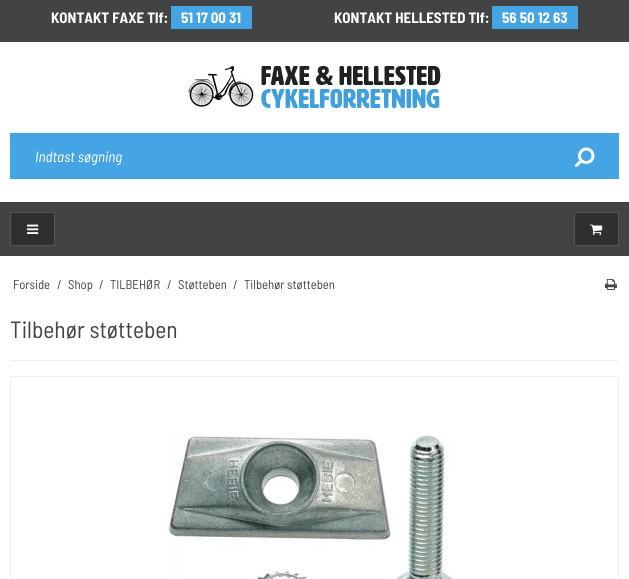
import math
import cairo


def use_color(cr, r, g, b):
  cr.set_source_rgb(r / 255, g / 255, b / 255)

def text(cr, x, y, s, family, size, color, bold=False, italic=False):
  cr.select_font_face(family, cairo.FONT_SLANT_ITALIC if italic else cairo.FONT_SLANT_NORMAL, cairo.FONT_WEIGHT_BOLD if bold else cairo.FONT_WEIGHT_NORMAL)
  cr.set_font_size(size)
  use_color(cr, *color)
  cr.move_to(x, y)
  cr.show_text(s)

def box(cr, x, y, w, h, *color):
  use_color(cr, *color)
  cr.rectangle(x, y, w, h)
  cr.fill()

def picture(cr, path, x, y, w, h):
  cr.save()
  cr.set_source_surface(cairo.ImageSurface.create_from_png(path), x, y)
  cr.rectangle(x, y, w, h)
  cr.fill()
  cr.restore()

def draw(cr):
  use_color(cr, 255, 255, 255)
  cr.paint()
  box(cr, 0, 0, 629, 42, 65, 67, 68)
  box(cr, 171, 6, 81, 23, 69, 164, 228)
  box(cr, 492, 6, 86, 23, 69, 164, 228)
  picture(cr, "img_01.png", 188, 65, 253, 43)
  box(cr, 10, 133, 609, 46, 69, 164, 228)
  picture(cr, "img_02.png", 575, 147, 20, 20)
  box(cr, 0, 202, 629, 54, 65, 67, 68)
  use_color(cr, 47, 47, 47)
  cr.rectangle(10.5, 212.5, 44, 33)
  cr.fill_preserve()
  use_color(cr, 85, 85, 85)
  cr.set_line_width(1)
  cr.stroke()
  picture(cr, "img_03.png", 27, 224, 12, 10)
  use_color(cr, 47, 47, 47)
  cr.rectangle(574.5, 212.5, 44, 33)
  cr.fill_preserve()
  use_color(cr, 85, 85, 85)
  cr.stroke()
  picture(cr, "img_04.png", 590, 224, 13, 11)
  picture(cr, "img_05.png", 605, 279, 12, 11)
  box(cr, 10, 360, 609, 1, 238, 238, 238)
  cr.rectangle(10.5, 376.5, 608, 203)
  cr.stroke()
  picture(cr, "img_06.png", 168, 433, 288, 146)
  text(cr, 51, 23, "KONTAKT FAXE Tlf:", "Barlow Semi Condensed", 15, (255, 255, 255), bold=True)
  text(cr, 181, 23, "51 17 00 31", "Barlow Semi Condensed", 15, (255, 255, 255), bold=True)
  text(cr, 334, 23, "KONTAKT HELLESTED Tlf:", "Barlow Semi Condensed", 15, (255, 255, 255), bold=True)
  text(cr, 502, 23, "56 50 12 63", "Barlow Semi Condensed", 15, (255, 255, 255), bold=True)
  text(cr, 35, 162, "Indtast søgning", "Barlow Semi Condensed", 15, (255, 255, 255), italic=True)
  text(cr, 13, 289, "Forside", "Barlow Semi Condensed", 12.75, (65, 67, 68))
  text(cr, 57, 289, "/", "Barlow Semi Condensed", 12.75, (65, 67, 68))
  text(cr, 68, 289, "Shop", "Barlow Semi Condensed", 12.75, (65, 67, 68))
  text(cr, 99, 289, "/", "Barlow Semi Condensed", 12.75, (65, 67, 68))
  text(cr, 110, 289, "TILBEHØR", "Barlow Semi Condensed", 12.75, (65, 67, 68))
  text(cr, 167, 289, "/", "Barlow Semi Condensed", 12.75, (65, 67, 68))
  text(cr, 178, 289, "Støtteben", "Barlow Semi Condensed", 12.75, (65, 67, 68))
  text(cr, 233, 289, "/", "Barlow Semi Condensed", 12.75, (65, 67, 68))
  text(cr, 244, 289, "Tilbehør støtteben", "Barlow Semi Condensed", 12.75, (65, 67, 68))
  text(cr, 10, 338, "Tilbehør støtteben", "Barlow Semi Condensed", 23.5, (65, 67, 68))


surface = cairo.ImageSurface(cairo.FORMAT_RGB24, 629, 579)
cr = cairo.Context(surface)
options = cairo.FontOptions()
options.set_hint_metrics(cairo.HINT_METRICS_OFF)
options.set_hint_style(cairo.HINT_STYLE_NONE)
cr.set_font_options(options)
cr.set_miter_limit(4)
draw(cr)
surface.write_to_png("out.png")
